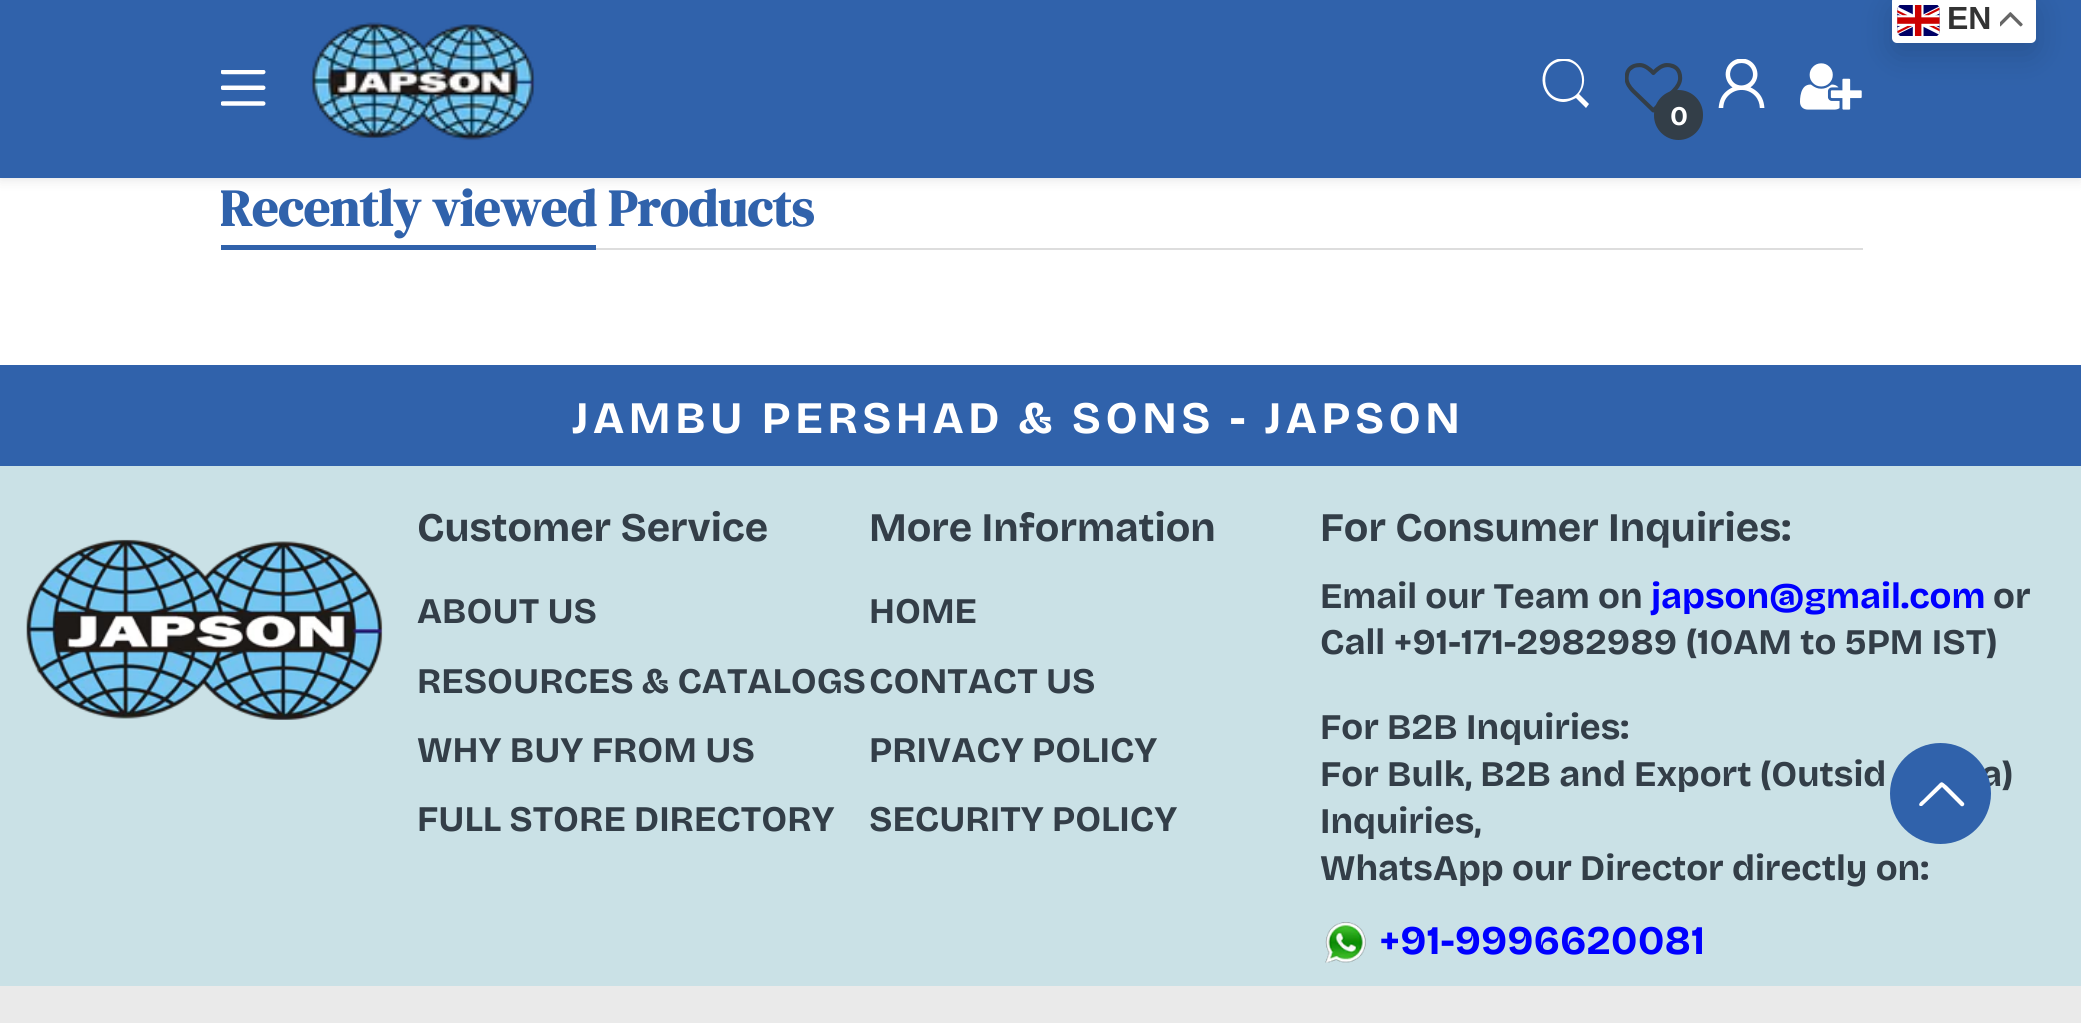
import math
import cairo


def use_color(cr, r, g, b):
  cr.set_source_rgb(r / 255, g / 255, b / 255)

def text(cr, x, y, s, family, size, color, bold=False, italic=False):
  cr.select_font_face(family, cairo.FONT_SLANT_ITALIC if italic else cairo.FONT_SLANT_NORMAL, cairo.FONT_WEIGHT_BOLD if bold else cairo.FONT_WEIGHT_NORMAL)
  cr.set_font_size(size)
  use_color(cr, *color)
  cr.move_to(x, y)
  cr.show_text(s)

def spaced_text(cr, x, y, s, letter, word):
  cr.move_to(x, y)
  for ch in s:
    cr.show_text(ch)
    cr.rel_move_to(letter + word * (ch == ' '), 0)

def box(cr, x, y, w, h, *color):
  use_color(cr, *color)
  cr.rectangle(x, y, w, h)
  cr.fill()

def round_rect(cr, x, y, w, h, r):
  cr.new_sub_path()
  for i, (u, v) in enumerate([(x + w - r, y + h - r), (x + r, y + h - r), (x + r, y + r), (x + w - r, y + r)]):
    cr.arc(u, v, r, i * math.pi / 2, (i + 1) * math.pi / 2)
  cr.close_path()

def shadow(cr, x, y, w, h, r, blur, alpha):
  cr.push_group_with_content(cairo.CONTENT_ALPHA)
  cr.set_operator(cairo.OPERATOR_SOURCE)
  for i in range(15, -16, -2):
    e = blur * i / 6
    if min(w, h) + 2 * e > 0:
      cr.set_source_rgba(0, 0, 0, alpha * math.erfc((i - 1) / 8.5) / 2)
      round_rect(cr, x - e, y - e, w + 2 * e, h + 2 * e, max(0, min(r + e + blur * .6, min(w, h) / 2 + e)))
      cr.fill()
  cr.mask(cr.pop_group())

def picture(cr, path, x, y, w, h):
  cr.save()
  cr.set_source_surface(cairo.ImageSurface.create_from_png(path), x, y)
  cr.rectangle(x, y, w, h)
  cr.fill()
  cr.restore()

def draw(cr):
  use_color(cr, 255, 255, 255)
  cr.paint()
  use_color(cr, 32, 33, 36)
  shadow(cr, 0, 0, 2081, 178, 0, 7, 0.15)
  box(cr, 0, 0, 2081, 178, 48, 98, 171)
  picture(cr, "img_06.png", 1800, 63, 62, 47)
  use_color(cr, 0, 0, 0)
  shadow(cr, 1892, 7, 144, 47, 5, 17, 0.15)
  use_color(cr, 255, 255, 255)
  round_rect(cr, 1892, -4, 144, 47, 5)
  cr.fill()
  picture(cr, "img_01.png", 1897, 5, 43, 31)
  picture(cr, "img_02.png", 2000, 12, 23, 15)
  picture(cr, "img_03.png", 221, 70, 45, 36)
  picture(cr, "img_04.png", 310, 22, 225, 119)
  cr.save()
  cr.rectangle(1541, 59, 50, 49)
  cr.clip()
  cr.new_path()
  cr.move_to(1555, 60)
  cr.curve_to(1576, 51, 1593, 77, 1579, 94)
  cr.line_to(1589, 104)
  cr.line_to(1586, 108)
  cr.line_to(1576, 98)
  cr.curve_to(1572, 100, 1568, 102, 1563, 102)
  cr.curve_to(1540, 101, 1535, 69, 1555, 60)
  cr.move_to(1563, 61)
  cr.curve_to(1538, 62, 1540, 101, 1565, 99)
  cr.curve_to(1589, 98, 1587, 60, 1563, 61)
  cr.close_path()
  cr.fill()
  cr.restore()
  picture(cr, "img_05.png", 1718, 59, 47, 49)
  picture(cr, "img_07.png", 1625, 63, 58, 50)
  use_color(cr, 51, 62, 72)
  round_rect(cr, 1654, 90, 49, 50, 24.5)
  cr.fill()
  box(cr, 596, 248, 1267, 2, 221, 221, 221)
  box(cr, 221, 245, 375, 5, 48, 98, 171)
  box(cr, 0, 365, 2081, 101, 48, 98, 171)
  box(cr, 0, 466, 2081, 520, 202, 225, 230)
  picture(cr, "img_08.png", 26, 539, 357, 181)
  picture(cr, "img_09.png", 1325, 922, 41, 41)
  box(cr, 0, 986, 2081, 37, 234, 234, 234)
  text(cr, 1947, 29, "EN", "Liberation Sans", 32, (51, 51, 51), bold=True)
  text(cr, 1670, 125, "0", "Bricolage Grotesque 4", 27, (255, 255, 255), bold=True)
  cr.save()
  cr.rectangle(221, 117, 1642, 180)
  cr.clip()
  text(cr, 219, 226, "Recently viewed Products", "DM Serif Display", 51.75, (48, 98, 171), bold=True)
  cr.restore()
  cr.select_font_face("Bricolage Grotesque", cairo.FONT_SLANT_NORMAL, cairo.FONT_WEIGHT_BOLD)
  cr.set_font_size(45)
  spaced_text(cr, 572, 433, "JAMBU PERSHAD & SONS - JAPSON", 4.5, 0)
  text(cr, 417, 541, "Customer Service", "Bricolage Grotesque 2", 40.5, (51, 62, 72), bold=True)
  text(cr, 417, 623, "ABOUT US", "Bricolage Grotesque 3", 36, (51, 62, 72), bold=True)
  text(cr, 417, 693, "RESOURCES & CATALOGS", "Bricolage Grotesque 3", 36, (51, 62, 72), bold=True)
  text(cr, 417, 762, "WHY BUY FROM US", "Bricolage Grotesque 3", 36, (51, 62, 72), bold=True)
  text(cr, 417, 831, "FULL STORE DIRECTORY", "Bricolage Grotesque 3", 36, (51, 62, 72), bold=True)
  text(cr, 869, 541, "More Information", "Bricolage Grotesque 2", 40.5, (51, 62, 72), bold=True)
  text(cr, 869, 623, "HOME", "Bricolage Grotesque 3", 36, (51, 62, 72), bold=True)
  text(cr, 869, 693, "CONTACT US", "Bricolage Grotesque 3", 36, (51, 62, 72), bold=True)
  text(cr, 869, 762, "PRIVACY POLICY", "Bricolage Grotesque 3", 36, (51, 62, 72), bold=True)
  text(cr, 869, 831, "SECURITY POLICY", "Bricolage Grotesque 3", 36, (51, 62, 72), bold=True)
  text(cr, 1320, 541, "For Consumer Inquiries:", "Bricolage Grotesque 2", 40.5, (51, 62, 72), bold=True)
  text(cr, 1320, 608, "Email our Team on", "Bricolage Grotesque 3", 36, (51, 62, 72), bold=True)
  text(cr, 1651, 608, "japson@gmail.com", "Bricolage Grotesque 3", 36, (0, 0, 255), bold=True)
  text(cr, 1993, 608, "or", "Bricolage Grotesque 3", 36, (51, 62, 72), bold=True)
  text(cr, 1320, 654, "Call +91-171-2982989 (10AM to 5PM IST)", "Bricolage Grotesque 3", 36, (51, 62, 72), bold=True)
  text(cr, 1320, 739, "For B2B Inquiries:", "Bricolage Grotesque 3", 36, (51, 62, 72), bold=True)
  text(cr, 1320, 786, "For Bulk, B2B and Export (Outsid", "Bricolage Grotesque 3", 36, (51, 62, 72), bold=True)
  text(cr, 1981, 786, "a)", "Bricolage Grotesque 3", 36, (51, 62, 72), bold=True)
  use_color(cr, 48, 98, 171)
  cr.new_path()
  cr.arc(1940.5, 793.5, 50.5, 0, 2 * math.pi)
  cr.fill()
  use_color(cr, 255, 255, 255)
  cr.new_path()
  cr.move_to(1964, 803)
  cr.line_to(1947, 786)
  cr.curve_to(1941, 781, 1942, 781, 1937, 786)
  cr.line_to(1923, 800)
  cr.curve_to(1923, 800, 1917, 804, 1920, 806)
  cr.line_to(1922, 806)
  cr.line_to(1942, 787)
  cr.line_to(1961, 806)
  cr.curve_to(1963, 807, 1965, 805, 1964, 803)
  cr.close_path()
  cr.fill()
  text(cr, 1320, 833, "Inquiries,", "Bricolage Grotesque 3", 36, (51, 62, 72), bold=True)
  text(cr, 1320, 880, "WhatsApp our Director directly on:", "Bricolage Grotesque 3", 36, (51, 62, 72), bold=True)
  text(cr, 1379, 954, "+91-9996620081", "Bricolage Grotesque 2", 40.5, (0, 0, 255), bold=True)


surface = cairo.ImageSurface(cairo.FORMAT_RGB24, 2081, 1023)
cr = cairo.Context(surface)
options = cairo.FontOptions()
options.set_hint_metrics(cairo.HINT_METRICS_OFF)
options.set_hint_style(cairo.HINT_STYLE_NONE)
cr.set_font_options(options)
cr.set_miter_limit(4)
draw(cr)
surface.write_to_png("out.png")
